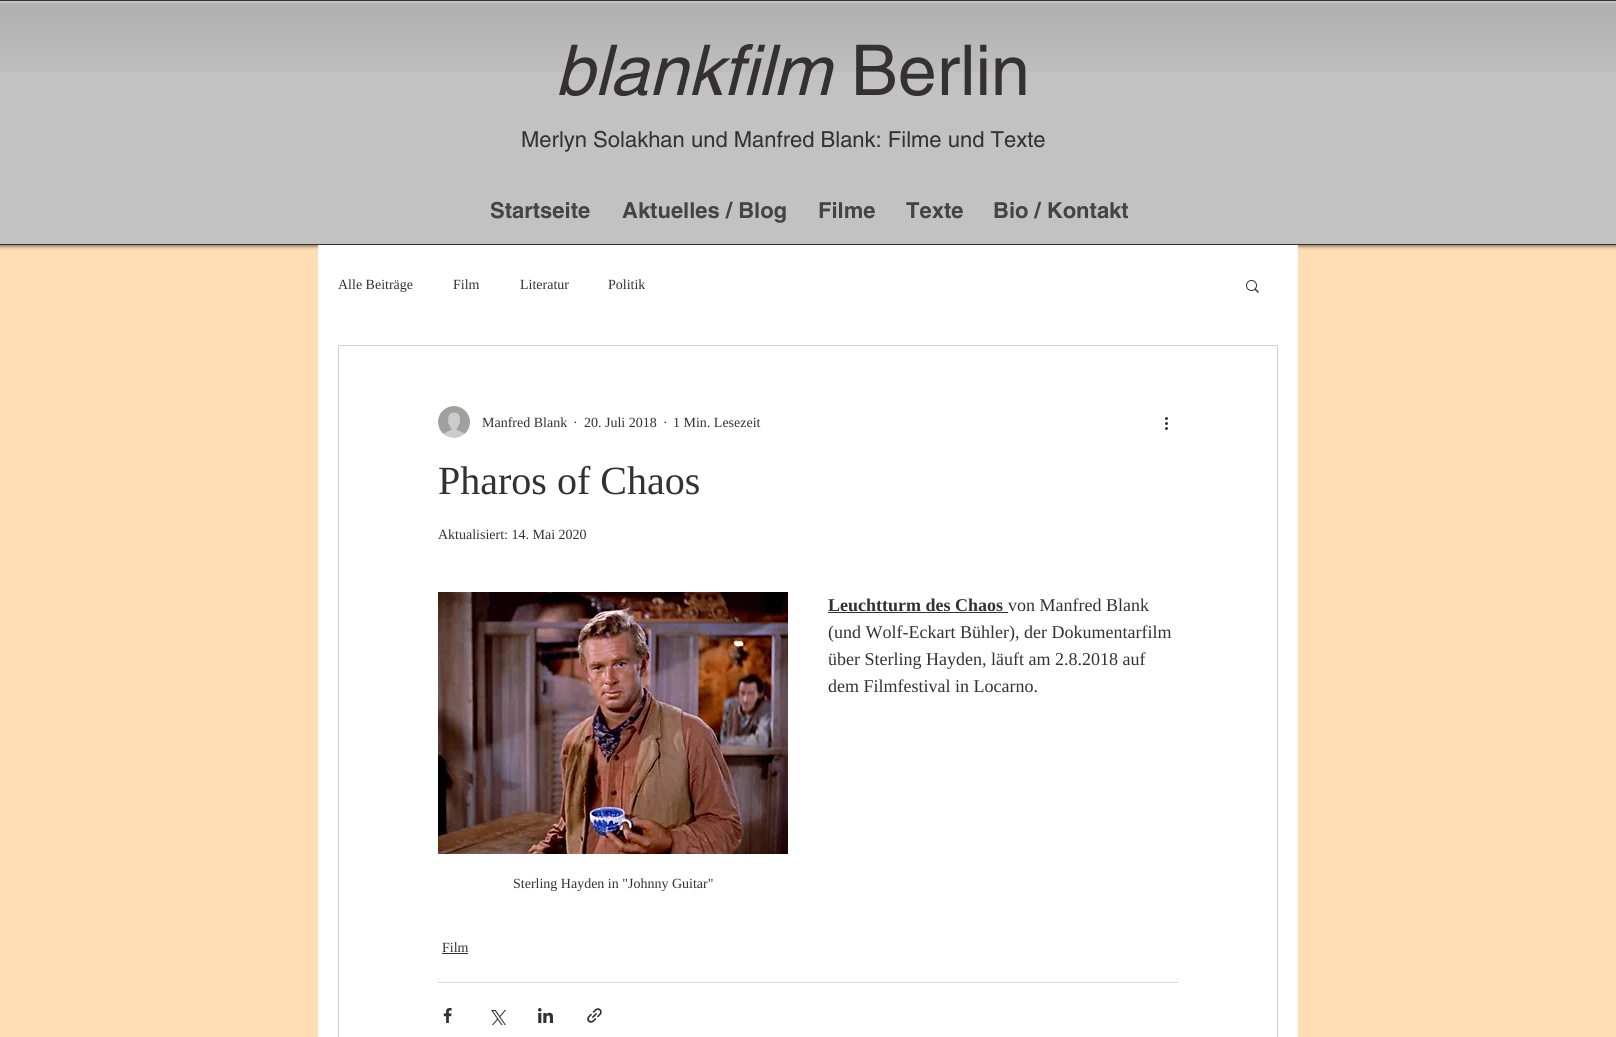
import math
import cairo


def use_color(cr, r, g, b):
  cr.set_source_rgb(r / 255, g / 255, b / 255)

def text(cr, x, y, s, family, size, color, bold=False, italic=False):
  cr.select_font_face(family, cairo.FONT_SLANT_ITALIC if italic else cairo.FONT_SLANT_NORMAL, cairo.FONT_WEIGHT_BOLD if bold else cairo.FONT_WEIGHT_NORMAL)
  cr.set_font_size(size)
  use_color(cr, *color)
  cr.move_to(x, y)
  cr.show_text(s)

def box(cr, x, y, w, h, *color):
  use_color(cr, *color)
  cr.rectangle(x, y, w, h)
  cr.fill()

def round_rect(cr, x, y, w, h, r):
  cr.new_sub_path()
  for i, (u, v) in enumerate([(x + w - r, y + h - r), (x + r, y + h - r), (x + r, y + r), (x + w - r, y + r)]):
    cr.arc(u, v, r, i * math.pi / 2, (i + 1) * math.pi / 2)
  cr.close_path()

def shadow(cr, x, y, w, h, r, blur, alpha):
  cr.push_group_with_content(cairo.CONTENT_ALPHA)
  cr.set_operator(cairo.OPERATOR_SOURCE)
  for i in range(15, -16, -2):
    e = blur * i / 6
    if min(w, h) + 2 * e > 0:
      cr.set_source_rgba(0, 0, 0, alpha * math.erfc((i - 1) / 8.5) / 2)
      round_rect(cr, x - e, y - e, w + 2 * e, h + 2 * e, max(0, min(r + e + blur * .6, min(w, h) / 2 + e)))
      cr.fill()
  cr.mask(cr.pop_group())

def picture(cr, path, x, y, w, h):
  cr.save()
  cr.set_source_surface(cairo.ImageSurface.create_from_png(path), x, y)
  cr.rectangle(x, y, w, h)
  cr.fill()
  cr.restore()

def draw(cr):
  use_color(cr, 255, 222, 179)
  cr.paint()
  use_color(cr, 0, 0, 0)
  shadow(cr, -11, 1, 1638, 245, 5, 2, 0.6)
  box(cr, 0, 1, 1616, 243, 194, 194, 194)
  picture(cr, "img_01.png", 0, 3, 1616, 69)
  cr.rectangle(-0.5, 0.5, 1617, 244)
  use_color(cr, 51, 49, 49)
  cr.set_line_width(1)
  cr.stroke()
  box(cr, 318, 245, 980, 792, 255, 255, 255)
  picture(cr, "img_02.png", 1246, 280, 13, 13)
  cr.rectangle(338.5, 345.5, 939, 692)
  use_color(cr, 209, 209, 209)
  cr.stroke()
  picture(cr, "img_03.png", 438, 406, 32, 32)
  picture(cr, "img_04.png", 1165, 417, 3, 13)
  box(cr, 828, 612, 180, 1, 51, 49, 49)
  picture(cr, "img_05.png", 438, 592, 350, 262)
  box(cr, 442, 953, 26, 1, 51, 49, 49)
  box(cr, 438, 982, 740, 1, 214, 214, 214)
  picture(cr, "img_06.png", 443, 1008, 9, 15)
  picture(cr, "img_07.png", 491, 1010, 15, 15)
  picture(cr, "img_08.png", 538, 1008, 15, 15)
  picture(cr, "img_09.png", 587, 1008, 15, 15)
  text(cr, 555, 95, "blankfilm", "helvetica", 70, (51, 49, 49), italic=True)
  text(cr, 851, 95, "Berlin", "helvetica", 70, (51, 49, 49))
  text(cr, 521, 147, "Merlyn Solakhan und Manfred Blank: Filme und Texte", "helvetica", 22, (51, 49, 49))
  text(cr, 490, 218, "Startseite", "helvetica", 22, (68, 68, 68), bold=True)
  text(cr, 622, 218, "Aktuelles / Blog", "helvetica", 22, (68, 68, 68), bold=True)
  text(cr, 818, 218, "Filme", "helvetica", 22, (68, 68, 68), bold=True)
  text(cr, 906, 218, "Texte", "helvetica", 22, (68, 68, 68), bold=True)
  text(cr, 993, 218, "Bio / Kontakt", "helvetica", 22, (68, 68, 68), bold=True)
  text(cr, 338, 289, "Alle Beiträge", "Liberation Serif", 14, (51, 49, 49))
  text(cr, 453, 289, "Film", "Liberation Serif", 14, (51, 49, 49))
  text(cr, 520, 289, "Literatur", "Liberation Serif", 14, (51, 49, 49))
  text(cr, 608, 289, "Politik", "Liberation Serif", 14, (51, 49, 49))
  text(cr, 482, 427, "Manfred Blank", "Liberation Serif", 14, (51, 49, 49))
  text(cr, 573, 427, "·", "Liberation Serif", 14, (51, 49, 49))
  text(cr, 584, 427, "20. Juli 2018", "Liberation Serif", 14, (51, 49, 49))
  text(cr, 663, 427, "·", "Liberation Serif", 14, (51, 49, 49))
  text(cr, 673, 427, "1 Min. Lesezeit", "Liberation Serif", 14, (51, 49, 49))
  text(cr, 438, 494, "Pharos of Chaos", "Liberation Serif", 40, (51, 49, 49))
  text(cr, 438, 539, "Aktualisiert: 14. Mai 2020", "Liberation Serif", 14, (51, 49, 49))
  text(cr, 828, 611, "Leuchtturm des Chaos", "Liberation Serif", 18, (51, 49, 49), bold=True)
  text(cr, 1008, 611, "von Manfred Blank", "Liberation Serif", 18, (51, 49, 49))
  text(cr, 828, 638, "(und Wolf-Eckart Bühler), der Dokumentarfilm", "Liberation Serif", 18, (51, 49, 49))
  text(cr, 828, 665, "über Sterling Hayden, läuft am 2.8.2018 auf", "Liberation Serif", 18, (51, 49, 49))
  text(cr, 828, 692, "dem Filmfestival in Locarno.", "Liberation Serif", 18, (51, 49, 49))
  text(cr, 513, 888, "Sterling Hayden in \"Johnny Guitar\"", "Liberation Serif", 14, (51, 49, 49))
  text(cr, 442, 952, "Film", "Liberation Serif", 14, (51, 49, 49))


surface = cairo.ImageSurface(cairo.FORMAT_RGB24, 1616, 1037)
cr = cairo.Context(surface)
options = cairo.FontOptions()
options.set_hint_metrics(cairo.HINT_METRICS_OFF)
options.set_hint_style(cairo.HINT_STYLE_NONE)
cr.set_font_options(options)
cr.set_miter_limit(4)
draw(cr)
surface.write_to_png("out.png")
